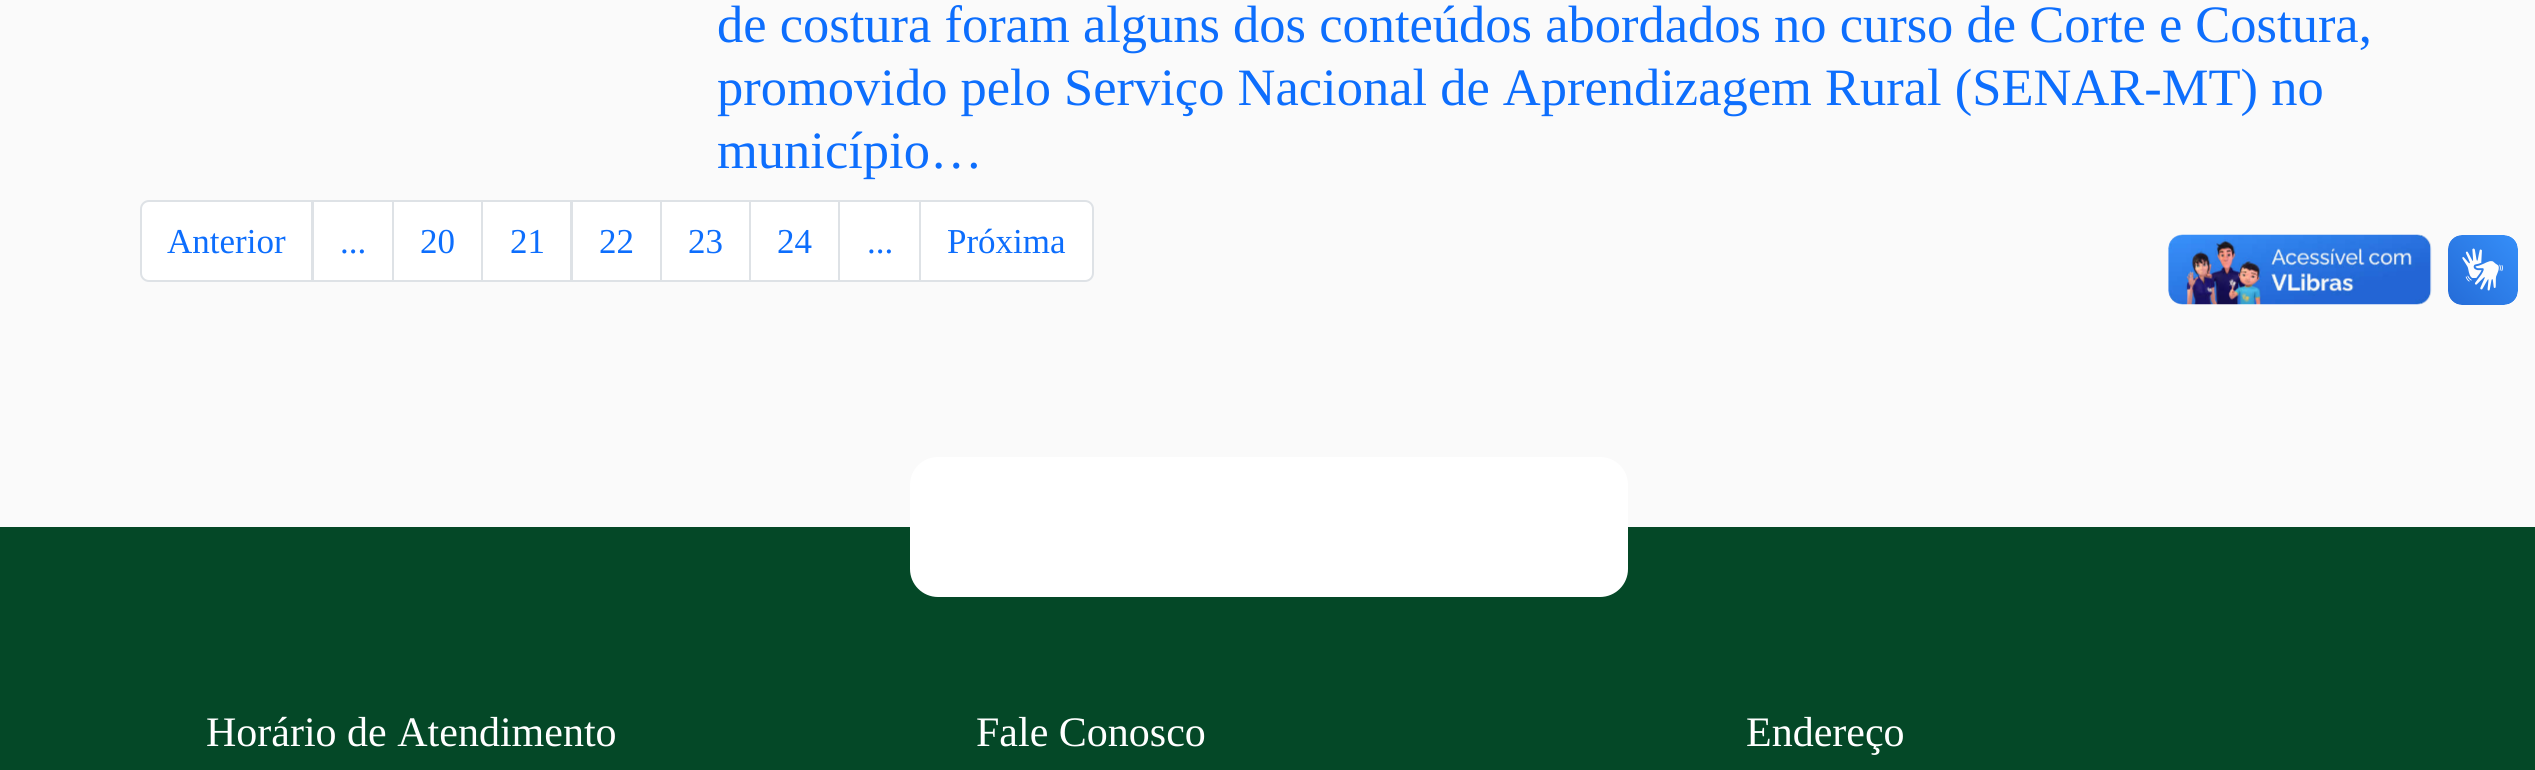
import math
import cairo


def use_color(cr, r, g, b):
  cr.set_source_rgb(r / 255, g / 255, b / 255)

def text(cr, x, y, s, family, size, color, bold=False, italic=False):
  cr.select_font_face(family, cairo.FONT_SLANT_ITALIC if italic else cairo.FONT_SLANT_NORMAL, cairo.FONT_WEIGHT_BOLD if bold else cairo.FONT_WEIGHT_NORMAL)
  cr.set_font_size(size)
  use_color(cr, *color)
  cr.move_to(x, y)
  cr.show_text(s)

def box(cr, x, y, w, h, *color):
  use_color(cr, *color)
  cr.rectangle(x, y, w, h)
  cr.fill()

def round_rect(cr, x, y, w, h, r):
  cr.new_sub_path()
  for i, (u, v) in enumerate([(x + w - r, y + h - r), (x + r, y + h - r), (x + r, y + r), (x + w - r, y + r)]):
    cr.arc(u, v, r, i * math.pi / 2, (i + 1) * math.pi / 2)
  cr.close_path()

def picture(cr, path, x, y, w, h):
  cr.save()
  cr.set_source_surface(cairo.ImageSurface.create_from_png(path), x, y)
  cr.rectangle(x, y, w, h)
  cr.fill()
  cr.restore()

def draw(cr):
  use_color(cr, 250, 250, 250)
  cr.paint()
  use_color(cr, 255, 255, 255)
  cr.new_path()
  cr.move_to(149, 201)
  cr.line_to(312, 201)
  cr.line_to(312, 281)
  cr.line_to(149, 281)
  cr.curve_to(144.5, 281, 141, 277.5, 141, 273)
  cr.line_to(141, 209)
  cr.curve_to(141, 204.5, 144.5, 201, 149, 201)
  cr.close_path()
  cr.fill_preserve()
  use_color(cr, 222, 226, 230)
  cr.stroke()
  use_color(cr, 255, 255, 255)
  cr.rectangle(313, 201, 80, 80)
  cr.fill_preserve()
  use_color(cr, 222, 226, 230)
  cr.stroke()
  use_color(cr, 255, 255, 255)
  cr.rectangle(393, 201, 89, 80)
  cr.fill_preserve()
  use_color(cr, 222, 226, 230)
  cr.stroke()
  use_color(cr, 255, 255, 255)
  cr.rectangle(482, 201, 89, 80)
  cr.fill_preserve()
  use_color(cr, 222, 226, 230)
  cr.stroke()
  use_color(cr, 255, 255, 255)
  cr.rectangle(572, 201, 89, 80)
  cr.fill_preserve()
  use_color(cr, 222, 226, 230)
  cr.stroke()
  use_color(cr, 255, 255, 255)
  cr.rectangle(661, 201, 89, 80)
  cr.fill_preserve()
  use_color(cr, 222, 226, 230)
  cr.stroke()
  use_color(cr, 255, 255, 255)
  cr.rectangle(750, 201, 89, 80)
  cr.fill_preserve()
  use_color(cr, 222, 226, 230)
  cr.stroke()
  use_color(cr, 255, 255, 255)
  cr.rectangle(839, 201, 81, 80)
  cr.fill_preserve()
  use_color(cr, 222, 226, 230)
  cr.stroke()
  use_color(cr, 255, 255, 255)
  cr.new_path()
  cr.move_to(920, 201)
  cr.line_to(1085, 201)
  cr.curve_to(1089.5, 201, 1093, 204.5, 1093, 209)
  cr.line_to(1093, 273)
  cr.curve_to(1093, 277.5, 1089.5, 281, 1085, 281)
  cr.line_to(920, 281)
  cr.close_path()
  cr.fill_preserve()
  use_color(cr, 222, 226, 230)
  cr.stroke()
  picture(cr, "img_01.png", 2168, 234, 264, 71)
  picture(cr, "img_02.png", 2448, 235, 70, 70)
  box(cr, 0, 527, 2535, 243, 4, 72, 39)
  use_color(cr, 255, 255, 255)
  round_rect(cr, 910, 457, 718, 140, 28)
  cr.fill()
  text(cr, 717, 42, "de costura foram alguns dos conteúdos abordados no curso de Corte e Costura,", "Liberation Serif", 52.5, (13, 110, 253))
  text(cr, 717, 105, "promovido pelo Serviço Nacional de Aprendizagem Rural (SENAR-MT) no", "Liberation Serif", 52.5, (13, 110, 253))
  text(cr, 717, 168, "município…", "Liberation Serif", 52.5, (13, 110, 253))
  text(cr, 167, 253, "Anterior", "Liberation Serif", 35, (13, 110, 253))
  text(cr, 340, 253, "...", "Liberation Serif", 35, (13, 110, 253))
  text(cr, 420, 253, "20", "Liberation Serif", 35, (13, 110, 253))
  text(cr, 510, 253, "21", "Liberation Serif", 35, (13, 110, 253))
  text(cr, 599, 253, "22", "Liberation Serif", 35, (13, 110, 253))
  text(cr, 688, 253, "23", "Liberation Serif", 35, (13, 110, 253))
  text(cr, 777, 253, "24", "Liberation Serif", 35, (13, 110, 253))
  text(cr, 867, 253, "...", "Liberation Serif", 35, (13, 110, 253))
  text(cr, 947, 253, "Próxima", "Liberation Serif", 35, (13, 110, 253))
  text(cr, 206, 746, "Horário de Atendimento", "Liberation Serif", 42, (255, 255, 255))
  text(cr, 976, 746, "Fale Conosco", "Liberation Serif", 42, (255, 255, 255))
  text(cr, 1746, 746, "Endereço", "Liberation Serif", 42, (255, 255, 255))


surface = cairo.ImageSurface(cairo.FORMAT_RGB24, 2535, 770)
cr = cairo.Context(surface)
options = cairo.FontOptions()
options.set_hint_metrics(cairo.HINT_METRICS_OFF)
options.set_hint_style(cairo.HINT_STYLE_NONE)
cr.set_font_options(options)
cr.set_miter_limit(4)
draw(cr)
surface.write_to_png("out.png")
